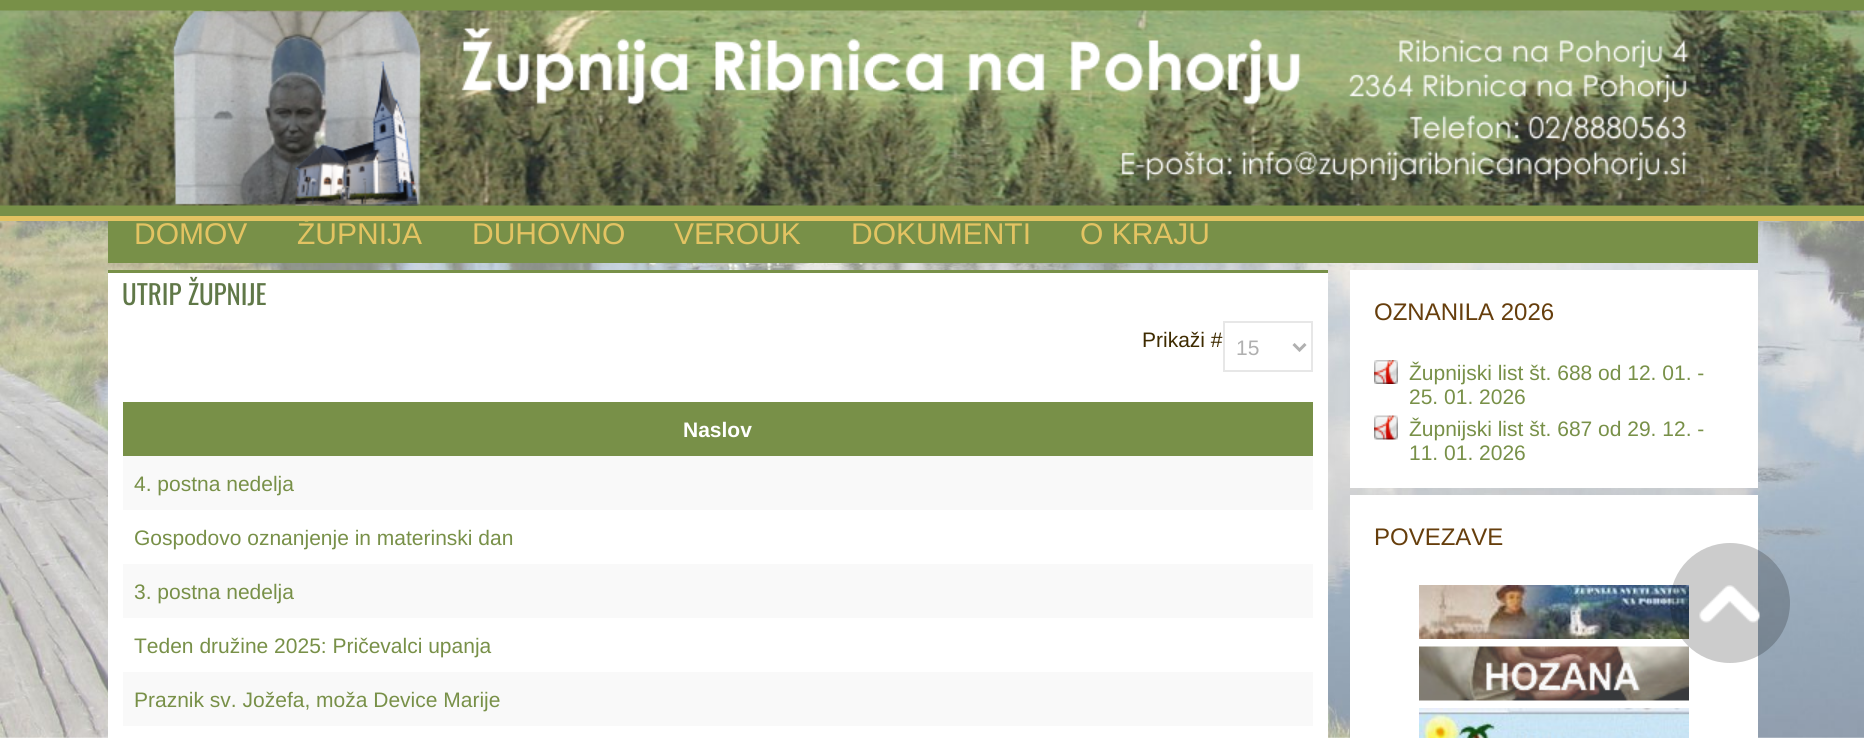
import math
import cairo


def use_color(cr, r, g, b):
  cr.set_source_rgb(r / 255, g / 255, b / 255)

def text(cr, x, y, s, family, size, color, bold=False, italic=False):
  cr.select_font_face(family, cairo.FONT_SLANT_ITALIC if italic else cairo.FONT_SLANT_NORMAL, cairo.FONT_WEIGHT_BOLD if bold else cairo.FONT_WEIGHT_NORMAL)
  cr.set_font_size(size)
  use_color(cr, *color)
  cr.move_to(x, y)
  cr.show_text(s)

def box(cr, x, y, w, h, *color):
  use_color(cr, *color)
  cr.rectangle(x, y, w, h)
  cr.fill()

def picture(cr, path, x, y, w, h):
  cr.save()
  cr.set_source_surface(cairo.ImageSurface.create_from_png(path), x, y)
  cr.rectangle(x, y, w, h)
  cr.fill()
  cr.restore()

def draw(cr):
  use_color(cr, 255, 255, 255)
  cr.paint()
  picture(cr, "img_01.png", 0, 221, 1864, 517)
  box(cr, 0, 0, 1864, 216, 120, 144, 72)
  picture(cr, "img_02.png", 0, 10, 1864, 196)
  box(cr, 0, 216, 1864, 5, 227, 195, 98)
  picture(cr, "img_03.png", 172, 11, 1516, 195)
  box(cr, 108, 221, 1650, 42, 120, 144, 72)
  box(cr, 108, 273, 1220, 465, 255, 255, 255)
  box(cr, 108, 270, 1220, 3, 120, 144, 72)
  cr.rectangle(1224, 322, 88, 49)
  use_color(cr, 231, 231, 231)
  cr.stroke()
  cr.new_path()
  cr.move_to(1293.5, 344)
  cr.line_to(1299.5, 350)
  cr.line_to(1305.5, 344)
  use_color(cr, 176, 176, 176)
  cr.set_line_width(3)
  cr.stroke()
  box(cr, 123, 402, 1190, 54, 120, 144, 72)
  box(cr, 123, 456, 1190, 54, 249, 249, 249)
  box(cr, 123, 564, 1190, 54, 249, 249, 249)
  box(cr, 123, 672, 1190, 54, 249, 249, 249)
  box(cr, 1350, 270, 408, 218, 255, 255, 255)
  picture(cr, "img_04.png", 1374, 360, 24, 24)
  picture(cr, "img_05.png", 1374, 415, 24, 25)
  box(cr, 1350, 495, 408, 243, 255, 255, 255)
  picture(cr, "img_06.png", 1419, 585, 270, 54)
  picture(cr, "img_07.png", 1419, 646, 270, 55)
  picture(cr, "img_08.png", 1419, 708, 270, 30)
  cr.set_source_rgba(0, 0, 0, 0.2)
  cr.arc(1730, 603, 60, 0, 2 * math.pi)
  cr.fill()
  picture(cr, "img_09.png", 1699, 585, 61, 38)
  text(cr, 134, 244, "DOMOV", "Liberation Sans", 30, (227, 195, 98))
  text(cr, 297, 244, "ŽUPNIJA", "Liberation Sans", 30, (227, 195, 98))
  text(cr, 472, 244, "DUHOVNO", "Liberation Sans", 30, (227, 195, 98))
  text(cr, 674, 244, "VEROUK", "Liberation Sans", 30, (227, 195, 98))
  text(cr, 851, 244, "DOKUMENTI", "Liberation Sans", 30, (227, 195, 98))
  text(cr, 1080, 244, "O KRAJU", "Liberation Sans", 30, (227, 195, 98))
  text(cr, 122, 305, "UTRIP ŽUPNIJE", "Oswald", 27, (96, 120, 72))
  text(cr, 1142, 347, "Prikaži #", "Liberation Sans", 21, (62, 43, 0))
  text(cr, 1236, 355, "15", "Liberation Sans", 21, (176, 176, 176))
  text(cr, 683, 437, "Naslov", "Liberation Sans", 21, (255, 255, 255), bold=True)
  text(cr, 134, 491, "4. postna nedelja", "Liberation Sans", 21, (120, 144, 72))
  text(cr, 134, 545, "Gospodovo oznanjenje in materinski dan", "Liberation Sans", 21, (120, 144, 72))
  text(cr, 134, 599, "3. postna nedelja", "Liberation Sans", 21, (120, 144, 72))
  text(cr, 134, 653, "Teden družine 2025: Pričevalci upanja", "Liberation Sans", 21, (120, 144, 72))
  text(cr, 134, 707, "Praznik sv. Jožefa, moža Device Marije", "Liberation Sans", 21, (120, 144, 72))
  text(cr, 1374, 320, "OZNANILA 2026", "Liberation Sans", 24, (102, 62, 12))
  text(cr, 1409, 380, "Župnijski list št. 688 od 12. 01. -", "Liberation Sans", 21, (120, 144, 72))
  text(cr, 1409, 404, "25. 01. 2026", "Liberation Sans", 21, (120, 144, 72))
  text(cr, 1409, 436, "Župnijski list št. 687 od 29. 12. -", "Liberation Sans", 21, (120, 144, 72))
  text(cr, 1409, 460, "11. 01. 2026", "Liberation Sans", 21, (120, 144, 72))
  text(cr, 1374, 545, "POVEZAVE", "Liberation Sans", 24, (102, 62, 12))


surface = cairo.ImageSurface(cairo.FORMAT_RGB24, 1864, 738)
cr = cairo.Context(surface)
options = cairo.FontOptions()
options.set_hint_metrics(cairo.HINT_METRICS_OFF)
options.set_hint_style(cairo.HINT_STYLE_NONE)
cr.set_font_options(options)
cr.set_miter_limit(4)
draw(cr)
surface.write_to_png("out.png")
